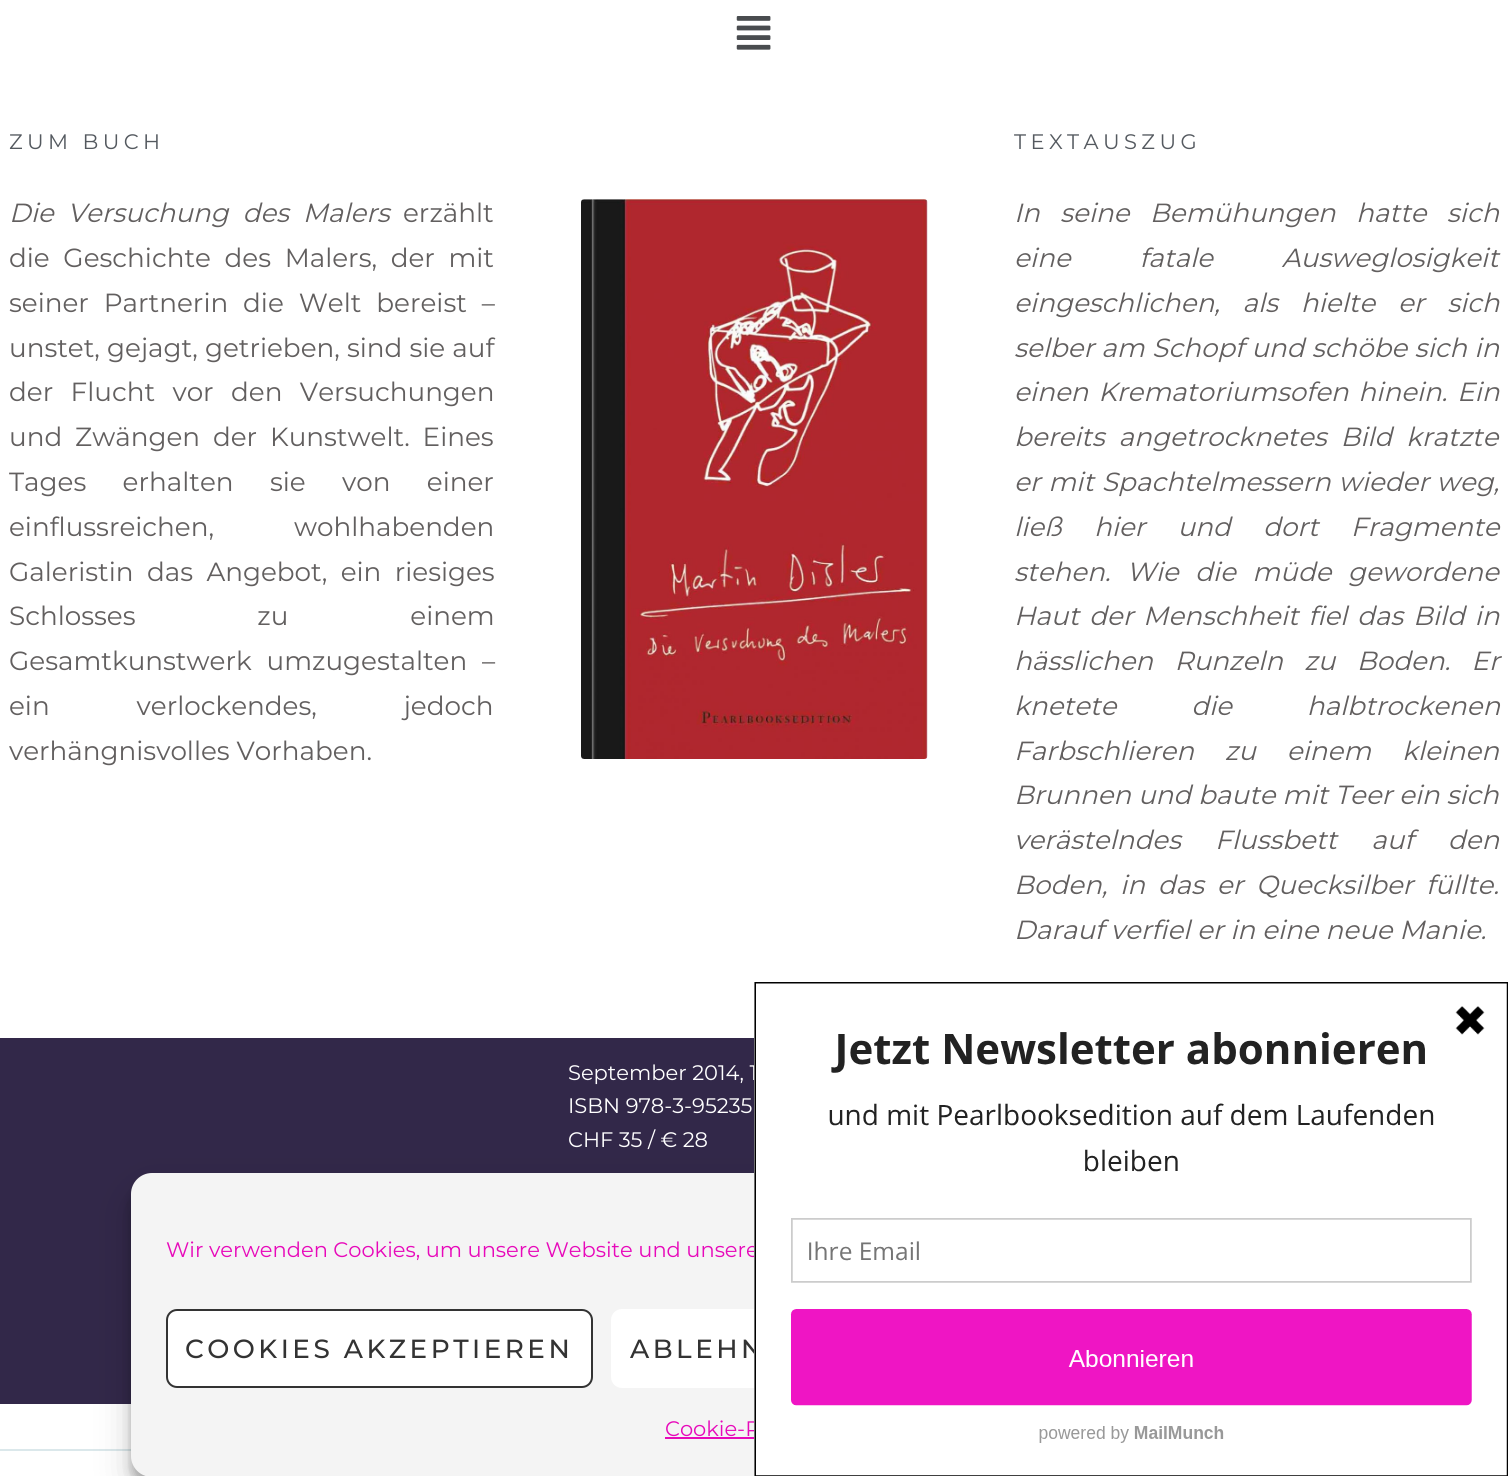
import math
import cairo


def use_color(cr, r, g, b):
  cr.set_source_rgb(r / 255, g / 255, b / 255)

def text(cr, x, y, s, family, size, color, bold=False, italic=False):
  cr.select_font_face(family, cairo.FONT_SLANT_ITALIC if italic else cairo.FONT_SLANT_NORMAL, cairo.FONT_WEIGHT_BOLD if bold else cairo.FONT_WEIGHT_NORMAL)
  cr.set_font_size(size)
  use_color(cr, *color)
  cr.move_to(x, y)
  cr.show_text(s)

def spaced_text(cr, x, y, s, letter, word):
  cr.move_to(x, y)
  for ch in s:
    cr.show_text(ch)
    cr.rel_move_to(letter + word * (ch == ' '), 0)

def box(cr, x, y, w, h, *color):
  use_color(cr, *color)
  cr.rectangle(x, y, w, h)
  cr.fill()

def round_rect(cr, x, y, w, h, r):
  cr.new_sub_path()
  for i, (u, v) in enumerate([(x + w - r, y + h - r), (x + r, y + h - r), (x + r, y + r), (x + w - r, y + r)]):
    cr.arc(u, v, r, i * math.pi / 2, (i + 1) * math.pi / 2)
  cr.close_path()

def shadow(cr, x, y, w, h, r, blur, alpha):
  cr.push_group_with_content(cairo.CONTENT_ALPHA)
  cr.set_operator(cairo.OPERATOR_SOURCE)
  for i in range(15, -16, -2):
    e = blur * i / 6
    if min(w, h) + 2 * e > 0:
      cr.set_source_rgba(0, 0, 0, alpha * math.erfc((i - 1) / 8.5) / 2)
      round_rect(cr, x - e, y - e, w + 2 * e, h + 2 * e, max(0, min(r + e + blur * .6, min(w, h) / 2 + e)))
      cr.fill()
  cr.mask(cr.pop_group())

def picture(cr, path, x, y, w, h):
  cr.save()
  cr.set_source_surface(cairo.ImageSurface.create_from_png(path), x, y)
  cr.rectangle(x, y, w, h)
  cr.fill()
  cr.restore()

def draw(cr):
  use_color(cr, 255, 255, 255)
  cr.paint()
  picture(cr, "img_01.png", 736, 16, 35, 34)
  picture(cr, "img_02.png", 581, 199, 347, 560)
  box(cr, 0, 1038, 754, 366, 50, 40, 73)
  box(cr, 0, 1449, 131, 2, 219, 232, 235)
  use_color(cr, 0, 0, 0)
  shadow(cr, 131, 1183, 1246, 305, 21, 5, 0.23)
  shadow(cr, 131, 1190, 1246, 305, 21, 17.5, 0.19)
  use_color(cr, 244, 244, 244)
  round_rect(cr, 131, 1173, 1246, 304, 21)
  cr.fill()
  use_color(cr, 255, 255, 255)
  round_rect(cr, 167, 1310, 425, 77, 10)
  cr.fill_preserve()
  use_color(cr, 51, 51, 51)
  cr.stroke()
  use_color(cr, 255, 255, 255)
  round_rect(cr, 612, 1310, 218, 77, 10)
  cr.fill_preserve()
  cr.stroke()
  box(cr, 665, 1437, 89, 2, 231, 9, 186)
  cr.select_font_face("Montserrat")
  cr.set_font_size(21)
  use_color(cr, 84, 89, 95)
  spaced_text(cr, 9, 149, "ZUM BUCH", 4.4, 0)
  cr.select_font_face("Montserrat", cairo.FONT_SLANT_ITALIC)
  cr.set_font_size(26.25)
  use_color(cr, 98, 95, 95)
  spaced_text(cr, 9, 222, "Die Versuchung des Malers", 0, 7)
  text(cr, 403, 222, "erzählt", "Montserrat", 26.25, (98, 95, 95))
  spaced_text(cr, 9, 267, "die Geschichte des Malers, der mit", 0, 6.75)
  spaced_text(cr, 9, 312, "seiner Partnerin die Welt bereist –", 0, 8)
  spaced_text(cr, 9, 357, "unstet, gejagt, getrieben, sind sie auf", 0, 0.25)
  spaced_text(cr, 9, 401, "der Flucht vor den Versuchungen", 0, 10.5)
  spaced_text(cr, 9, 446, "und Zwängen der Kunstwelt. Eines", 0, 6)
  spaced_text(cr, 9, 491, "Tages erhalten sie von einer", 0, 29.5)
  spaced_text(cr, 9, 536, "einflussreichen, wohlhabenden", 0, 73)
  spaced_text(cr, 9, 581, "Galeristin das Angebot, ein riesiges", 0, 6.5)
  spaced_text(cr, 9, 625, "Schlosses zu einem", 0, 115)
  spaced_text(cr, 9, 670, "Gesamtkunstwerk umzugestalten –", 0, 8)
  spaced_text(cr, 9, 715, "ein verlockendes, jedoch", 0, 80)
  text(cr, 9, 760, "verhängnisvolles Vorhaben.", "Montserrat", 26.25, (98, 95, 95))
  cr.set_font_size(21)
  use_color(cr, 84, 89, 95)
  spaced_text(cr, 1014, 149, "TEXTAUSZUG", 4.4, 0)
  cr.select_font_face("Montserrat", cairo.FONT_SLANT_ITALIC)
  cr.set_font_size(26.25)
  use_color(cr, 98, 95, 95)
  spaced_text(cr, 1014, 222, "In seine Bemühungen hatte sich", 0, 13.5)
  spaced_text(cr, 1014, 267, "eine fatale Ausweglosigkeit", 0, 62)
  text(cr, 1014, 312, "eingeschli", "Montserrat", 26.25, (98, 95, 95), italic=True)
  spaced_text(cr, 1148, 312, "chen, als hielte er sich", 0, 16)
  spaced_text(cr, 1014, 357, "selber am Schopf und schöbe sich in", 0, 0.5)
  spaced_text(cr, 1014, 401, "einen Krematoriumsofen hinein. Ein", 0, 3)
  spaced_text(cr, 1014, 446, "bereits angetrocknetes Bild kratzte", 0, 7)
  spaced_text(cr, 1014, 491, "er mit Spachtelmessern wieder weg,", 0, 1)
  spaced_text(cr, 1014, 536, "ließ hier und dort Fragmente", 0, 25.5)
  spaced_text(cr, 1014, 581, "stehen. Wie die müde gewordene", 0, 9.5)
  spaced_text(cr, 1014, 625, "Haut der Menschheit fiel das Bild in", 0, 3)
  spaced_text(cr, 1014, 670, "hässlichen Runzeln zu Boden. Er", 0, 14.5)
  spaced_text(cr, 1014, 715, "knetete die halbtrockenen", 0, 68)
  spaced_text(cr, 1014, 760, "Farbschlieren zu einem kleinen", 0, 24)
  text(cr, 1014, 804, "Brunnen und baute mit Teer ein sich", "Montserrat", 26.25, (98, 95, 95), italic=True)
  spaced_text(cr, 1014, 849, "verästelndes Flussbett auf den", 0, 27.5)
  spaced_text(cr, 1014, 894, "Boden, in das er Quecksilber füllte.", 0, 6)
  text(cr, 1014, 939, "Darauf verfiel er in eine neue Manie.", "Montserrat", 26.25, (98, 95, 95), italic=True)
  text(cr, 568, 1080, "September 2014, 1", "Montserrat", 21, (255, 255, 255))
  text(cr, 568, 1113, "ISBN 978-3-95235", "Montserrat", 21, (255, 255, 255))
  text(cr, 568, 1147, "CHF 35 / € 28", "Montserrat", 21, (255, 255, 255))
  text(cr, 166, 1257, "Wir verwenden Cookies, um unsere Website und unsere", "Montserrat", 21, (231, 9, 186))
  cr.select_font_face("Montserrat Medium")
  cr.set_font_size(26.25)
  use_color(cr, 51, 51, 51)
  spaced_text(cr, 185, 1358, "COOKIES AKZEPTIEREN", 3.5, 0)
  spaced_text(cr, 630, 1358, "ABLEHN", 3.5, 0)
  text(cr, 665, 1436, "Cookie-R", "Montserrat", 21, (231, 9, 186))
  picture(cr, "img_03.png", 754, 982, 754, 494)


surface = cairo.ImageSurface(cairo.FORMAT_RGB24, 1508, 1476)
cr = cairo.Context(surface)
options = cairo.FontOptions()
options.set_hint_metrics(cairo.HINT_METRICS_OFF)
options.set_hint_style(cairo.HINT_STYLE_NONE)
cr.set_font_options(options)
cr.set_miter_limit(4)
draw(cr)
surface.write_to_png("out.png")
